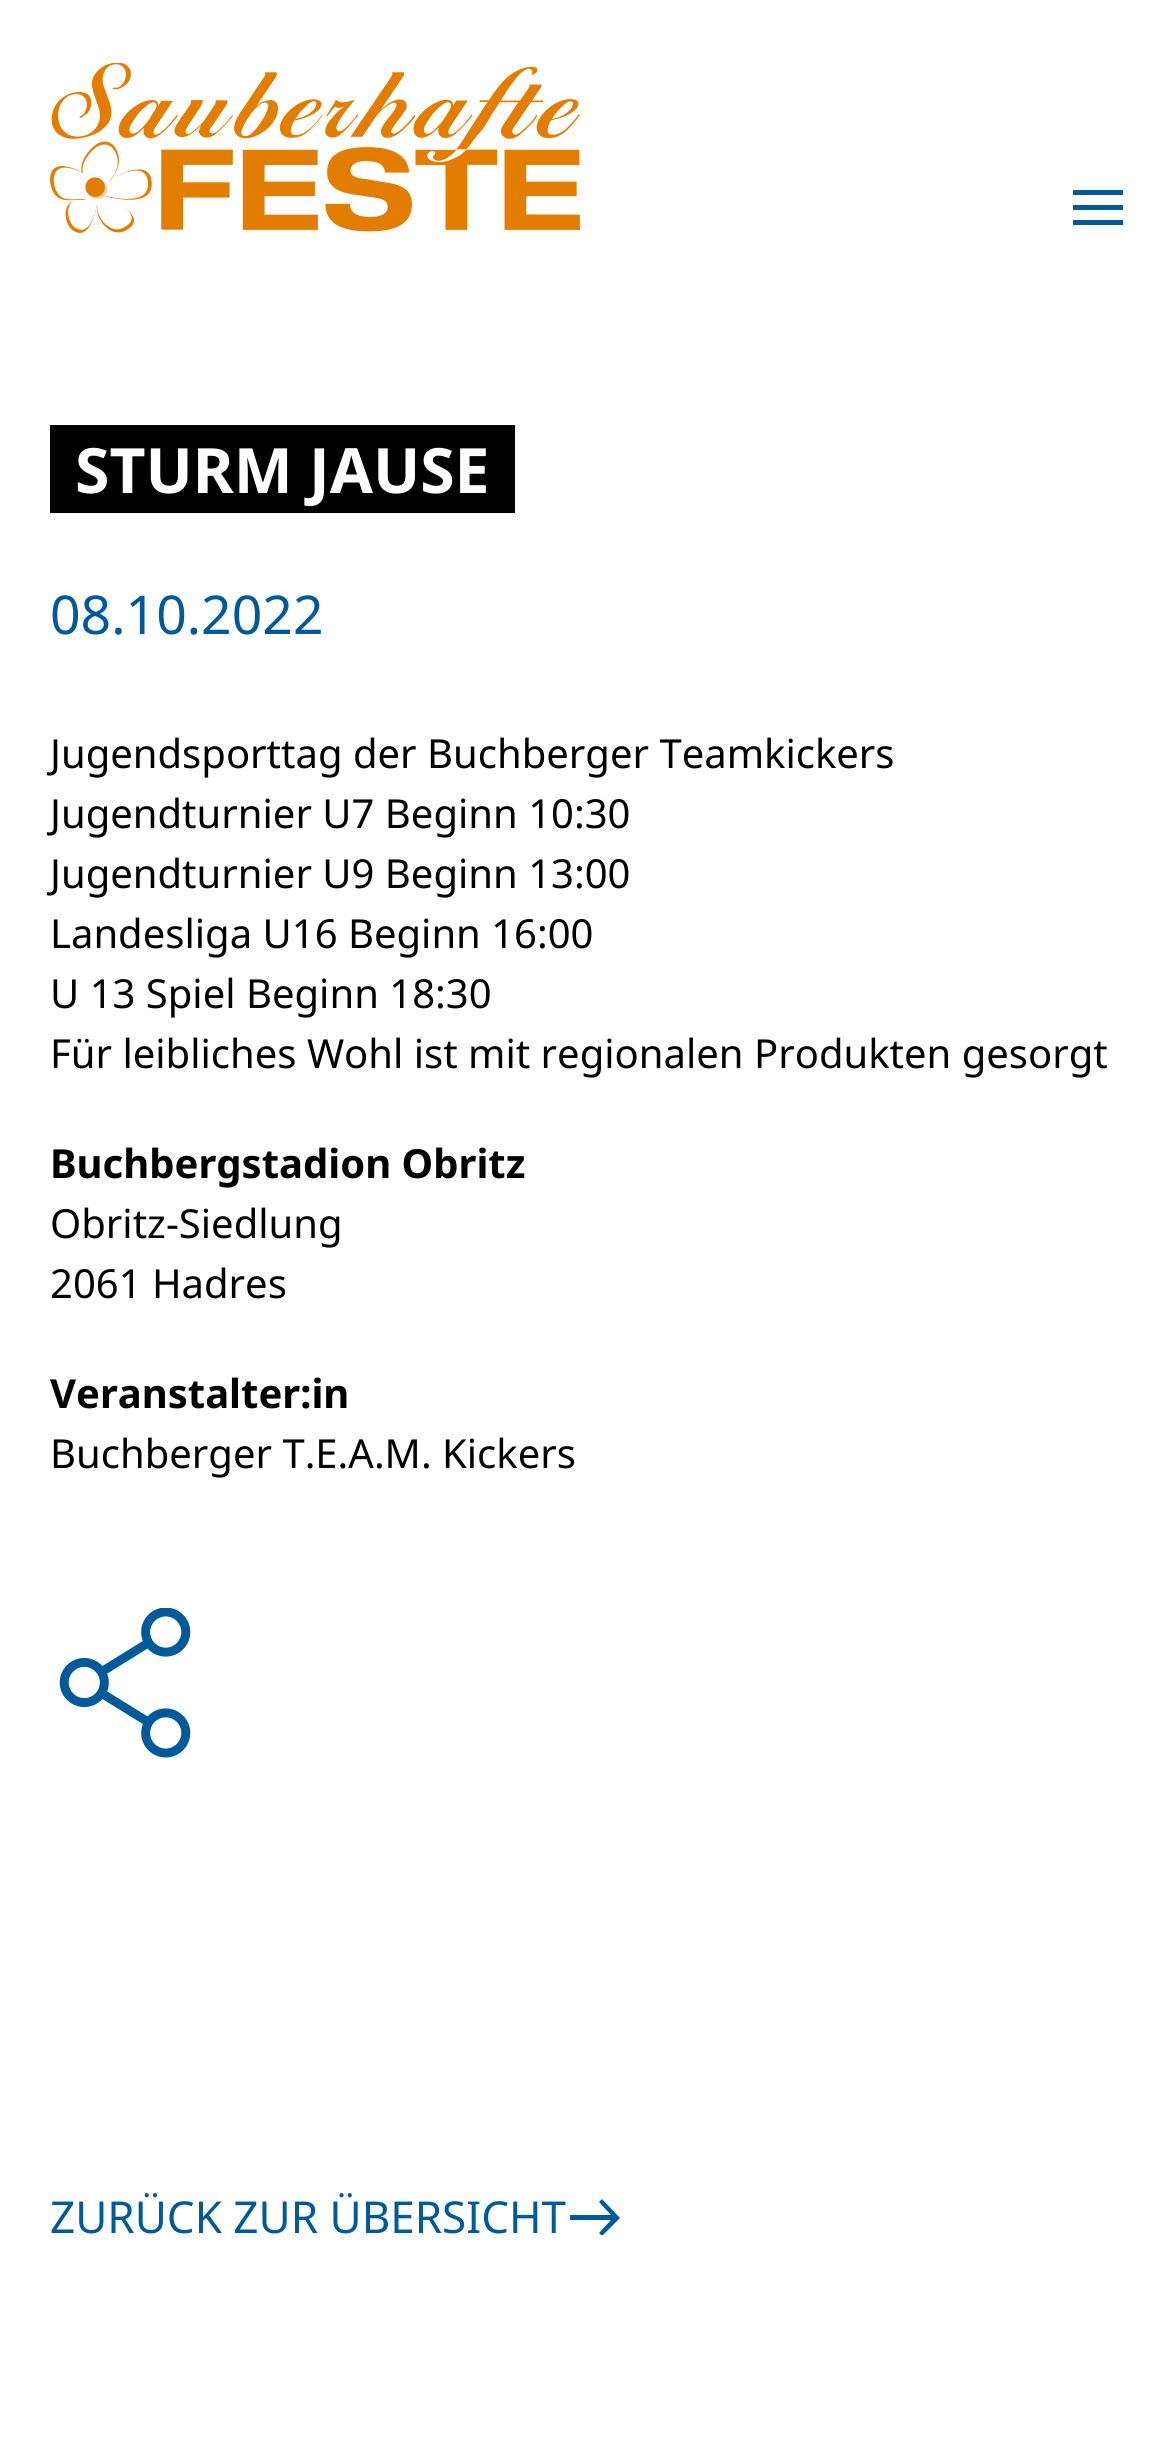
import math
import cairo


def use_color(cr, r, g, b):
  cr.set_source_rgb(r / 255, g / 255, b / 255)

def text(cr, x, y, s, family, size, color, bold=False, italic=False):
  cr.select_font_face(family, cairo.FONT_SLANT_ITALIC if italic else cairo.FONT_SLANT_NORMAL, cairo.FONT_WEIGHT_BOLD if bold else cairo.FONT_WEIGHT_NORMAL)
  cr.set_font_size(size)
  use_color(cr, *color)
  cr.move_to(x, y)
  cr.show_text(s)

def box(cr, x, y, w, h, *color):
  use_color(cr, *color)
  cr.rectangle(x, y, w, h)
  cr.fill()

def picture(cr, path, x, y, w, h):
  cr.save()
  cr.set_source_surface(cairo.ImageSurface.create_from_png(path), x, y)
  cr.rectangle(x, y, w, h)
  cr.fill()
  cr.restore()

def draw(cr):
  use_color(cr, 255, 255, 255)
  cr.paint()
  picture(cr, "img_01.png", 50, 63, 530, 170)
  box(cr, 1073, 190, 50, 5, 0, 89, 153)
  box(cr, 1073, 205, 50, 5, 0, 89, 153)
  box(cr, 1073, 220, 50, 5, 0, 89, 153)
  use_color(cr, 0, 0, 0)
  cr.new_path()
  cr.move_to(100, 510)
  cr.line_to(100, 513)
  cr.line_to(515, 513)
  cr.line_to(515, 428)
  cr.line_to(490, 428)
  cr.line_to(490, 510)
  cr.close_path()
  cr.fill()
  cr.new_path()
  cr.move_to(50, 428)
  cr.line_to(50, 513)
  cr.line_to(465, 513)
  cr.line_to(465, 510)
  cr.line_to(75, 510)
  cr.line_to(75, 428)
  cr.close_path()
  cr.fill()
  box(cr, 490, 425, 25, 3, 0, 0, 0)
  box(cr, 50, 425, 25, 3, 0, 0, 0)
  box(cr, 75, 425, 415, 85, 0, 0, 0)
  picture(cr, "img_02.png", 59, 1608, 132, 150)
  cr.save()
  cr.rectangle(570, 2198, 50, 37)
  cr.clip()
  use_color(cr, 0, 89, 153)
  cr.new_path()
  cr.move_to(602, 2199)
  cr.line_to(599, 2202)
  cr.line_to(611, 2215)
  cr.line_to(552, 2215)
  cr.line_to(552, 2220)
  cr.line_to(611, 2220)
  cr.line_to(599, 2233)
  cr.line_to(602, 2236)
  cr.line_to(620, 2218)
  cr.close_path()
  cr.fill()
  cr.restore()
  text(cr, 75, 493, "STURM JAUSE", "Noto Sans", 62.5, (255, 255, 255), bold=True)
  text(cr, 50, 634, "08.10.2022", "Noto Sans", 53.5, (0, 89, 153))
  text(cr, 50, 768, "Jugendsporttag der Buchberger Teamkickers", "Noto Sans", 40, (0, 0, 0))
  text(cr, 50, 828, "Jugendturnier U7 Beginn 10:30", "Noto Sans", 40, (0, 0, 0))
  text(cr, 50, 888, "Jugendturnier U9 Beginn 13:00", "Noto Sans", 40, (0, 0, 0))
  text(cr, 50, 948, "Landesliga U16 Beginn 16:00", "Noto Sans", 40, (0, 0, 0))
  text(cr, 50, 1008, "U 13 Spiel Beginn 18:30", "Noto Sans", 40, (0, 0, 0))
  text(cr, 50, 1068, "Für leibliches Wohl ist mit regionalen Produkten gesorgt", "Noto Sans", 40, (0, 0, 0))
  text(cr, 50, 1178, "Buchbergstadion Obritz", "Noto Sans", 40, (0, 0, 0), bold=True)
  text(cr, 50, 1238, "Obritz-Siedlung", "Noto Sans", 40, (0, 0, 0))
  text(cr, 50, 1298, "2061 Hadres", "Noto Sans", 40, (0, 0, 0))
  text(cr, 50, 1408, "Veranstalter:in", "Noto Sans", 40, (0, 0, 0), bold=True)
  text(cr, 50, 1468, "Buchberger T.E.A.M. Kickers", "Noto Sans", 40, (0, 0, 0))
  text(cr, 50, 2233, "ZURÜCK ZUR ÜBERSICHT", "Noto Sans", 44, (0, 89, 153))


surface = cairo.ImageSurface(cairo.FORMAT_RGB24, 1172, 2448)
cr = cairo.Context(surface)
options = cairo.FontOptions()
options.set_hint_metrics(cairo.HINT_METRICS_OFF)
options.set_hint_style(cairo.HINT_STYLE_NONE)
cr.set_font_options(options)
cr.set_miter_limit(4)
draw(cr)
surface.write_to_png("out.png")
